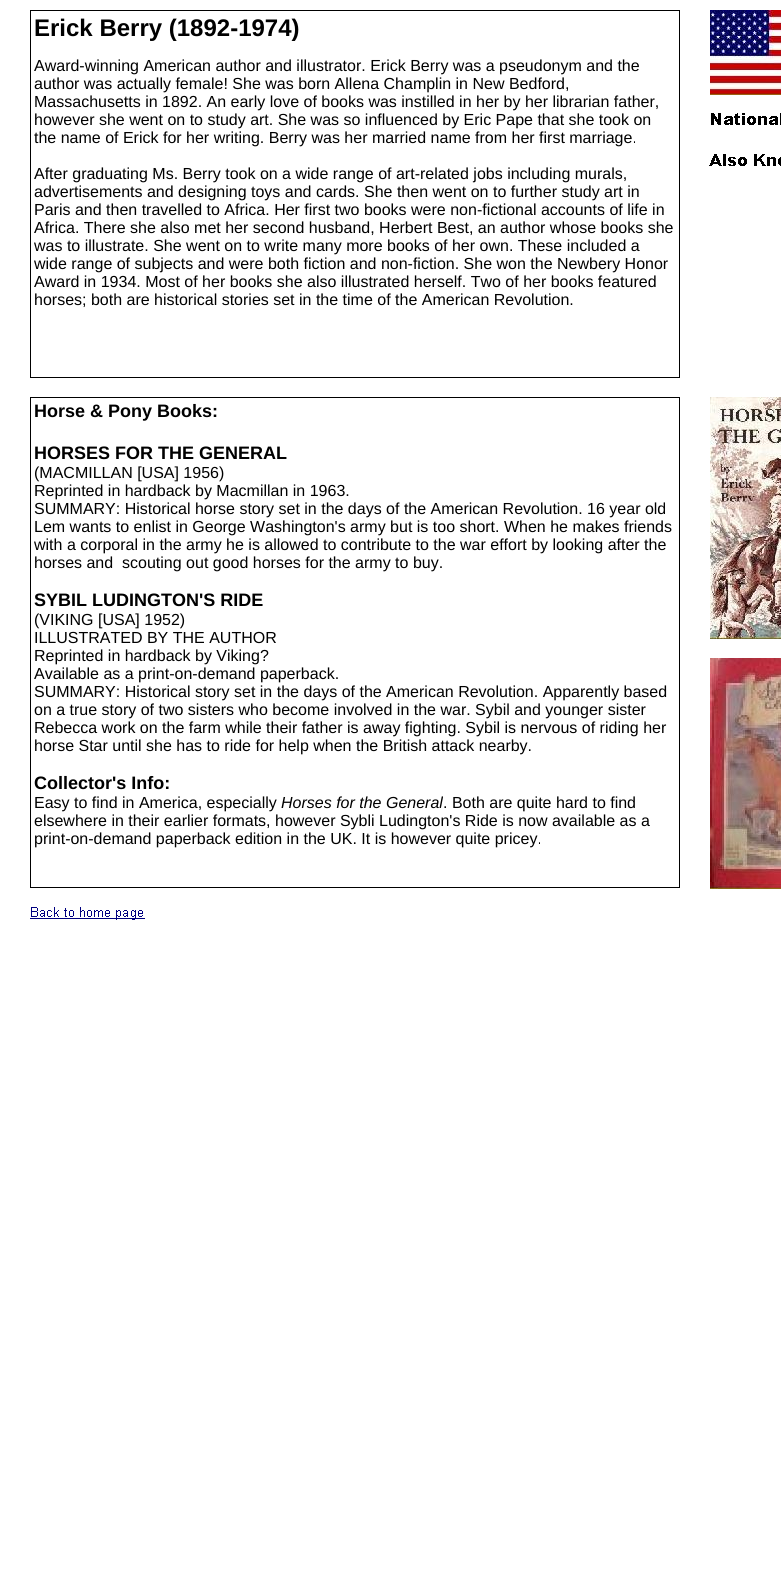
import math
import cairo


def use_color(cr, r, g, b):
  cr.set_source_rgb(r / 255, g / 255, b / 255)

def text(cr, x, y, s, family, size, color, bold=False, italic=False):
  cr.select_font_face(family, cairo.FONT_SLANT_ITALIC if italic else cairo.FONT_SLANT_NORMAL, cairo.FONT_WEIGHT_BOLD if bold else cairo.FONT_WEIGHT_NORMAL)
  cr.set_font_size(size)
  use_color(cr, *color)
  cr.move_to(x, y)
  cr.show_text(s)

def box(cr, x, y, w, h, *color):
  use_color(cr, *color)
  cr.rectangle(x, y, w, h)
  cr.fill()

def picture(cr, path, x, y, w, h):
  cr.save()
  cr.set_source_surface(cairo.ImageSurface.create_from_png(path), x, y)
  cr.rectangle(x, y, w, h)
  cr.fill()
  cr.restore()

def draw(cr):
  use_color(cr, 255, 255, 255)
  cr.paint()
  box(cr, 30, 10, 650, 1, 0, 0, 0)
  box(cr, 30, 11, 1, 366, 0, 0, 0)
  box(cr, 679, 11, 1, 366, 0, 0, 0)
  box(cr, 30, 377, 650, 1, 0, 0, 0)
  picture(cr, "img_01.png", 710, 10, 71, 85)
  picture(cr, "img_02.png", 709, 113, 72, 53)
  box(cr, 30, 397, 650, 1, 0, 0, 0)
  box(cr, 30, 398, 1, 489, 0, 0, 0)
  box(cr, 679, 398, 1, 489, 0, 0, 0)
  box(cr, 30, 887, 650, 1, 0, 0, 0)
  picture(cr, "img_03.png", 710, 397, 71, 242)
  picture(cr, "img_04.png", 710, 658, 71, 231)
  picture(cr, "img_05.png", 30, 907, 115, 13)
  text(cr, 34, 36, "Erick Berry (1892-1974)", "Liberation Sans", 24, (0, 0, 0), bold=True)
  text(cr, 34, 71, "Award-winning American author and illustrator. Erick Berry was a pseudonym and the", "Liberation Sans", 16, (0, 0, 0))
  text(cr, 34, 89, "author was actually female! She was born Allena Champlin in New Bedford,", "Liberation Sans", 16, (0, 0, 0))
  text(cr, 34, 107, "Massachusetts in 1892. An early love of books was instilled in her by her librarian father,", "Liberation Sans", 16, (0, 0, 0))
  text(cr, 34, 125, "however she went on to study art. She was so influenced by Eric Pape that she took on", "Liberation Sans", 16, (0, 0, 0))
  text(cr, 34, 143, "the name of Erick for her writing. Berry was her married name from her first marriage.", "Liberation Sans", 16, (0, 0, 0))
  text(cr, 34, 179, "After graduating Ms. Berry took on a wide range of art-related jobs including murals,", "Liberation Sans", 16, (0, 0, 0))
  text(cr, 34, 197, "advertisements and designing toys and cards. She then went on to further study art in", "Liberation Sans", 16, (0, 0, 0))
  text(cr, 34, 215, "Paris and then travelled to Africa. Her first two books were non-fictional accounts of life in", "Liberation Sans", 16, (0, 0, 0))
  text(cr, 34, 233, "Africa. There she also met her second husband, Herbert Best, an author whose books she", "Liberation Sans", 16, (0, 0, 0))
  text(cr, 34, 251, "was to illustrate. She went on to write many more books of her own. These included a", "Liberation Sans", 16, (0, 0, 0))
  text(cr, 34, 269, "wide range of subjects and were both fiction and non-fiction. She won the Newbery Honor", "Liberation Sans", 16, (0, 0, 0))
  text(cr, 34, 287, "Award in 1934. Most of her books she also illustrated herself. Two of her books featured", "Liberation Sans", 16, (0, 0, 0))
  text(cr, 34, 305, "horses; both are historical stories set in the time of the American Revolution.", "Liberation Sans", 16, (0, 0, 0))
  text(cr, 34, 417, "Horse & Pony Books:", "Liberation Sans", 18, (0, 0, 0), bold=True)
  text(cr, 34, 459, "HORSES FOR THE GENERAL", "Liberation Sans", 18, (0, 0, 0), bold=True)
  text(cr, 34, 478, "(MACMILLAN [USA] 1956)", "Liberation Sans", 16, (0, 0, 0))
  text(cr, 34, 496, "Reprinted in hardback by Macmillan in 1963.", "Liberation Sans", 16, (0, 0, 0))
  text(cr, 34, 514, "SUMMARY: Historical horse story set in the days of the American Revolution. 16 year old", "Liberation Sans", 16, (0, 0, 0))
  text(cr, 34, 532, "Lem wants to enlist in George Washington's army but is too short. When he makes friends", "Liberation Sans", 16, (0, 0, 0))
  text(cr, 34, 550, "with a corporal in the army he is allowed to contribute to the war effort by looking after the", "Liberation Sans", 16, (0, 0, 0))
  text(cr, 34, 568, "horses and  scouting out good horses for the army to buy.", "Liberation Sans", 16, (0, 0, 0))
  text(cr, 34, 606, "SYBIL LUDINGTON'S RIDE", "Liberation Sans", 18, (0, 0, 0), bold=True)
  text(cr, 34, 625, "(VIKING [USA] 1952)", "Liberation Sans", 16, (0, 0, 0))
  text(cr, 34, 643, "ILLUSTRATED BY THE AUTHOR", "Liberation Sans", 16, (0, 0, 0))
  text(cr, 34, 661, "Reprinted in hardback by Viking?", "Liberation Sans", 16, (0, 0, 0))
  text(cr, 34, 679, "Available as a print-on-demand paperback.", "Liberation Sans", 16, (0, 0, 0))
  text(cr, 34, 697, "SUMMARY: Historical story set in the days of the American Revolution. Apparently based", "Liberation Sans", 16, (0, 0, 0))
  text(cr, 34, 715, "on a true story of two sisters who become involved in the war. Sybil and younger sister", "Liberation Sans", 16, (0, 0, 0))
  text(cr, 34, 733, "Rebecca work on the farm while their father is away fighting. Sybil is nervous of riding her", "Liberation Sans", 16, (0, 0, 0))
  text(cr, 34, 751, "horse Star until she has to ride for help when the British attack nearby.", "Liberation Sans", 16, (0, 0, 0))
  text(cr, 34, 789, "Collector's Info:", "Liberation Sans", 18, (0, 0, 0), bold=True)
  text(cr, 34, 808, "Easy to find in America, especially", "Liberation Sans", 16, (0, 0, 0))
  text(cr, 281, 808, "Horses for the General", "Liberation Sans", 16, (0, 0, 0), italic=True)
  text(cr, 443, 808, ". Both are quite hard to find", "Liberation Sans", 16, (0, 0, 0))
  text(cr, 34, 826, "elsewhere in their earlier formats, however Sybli Ludington's Ride is now available as a", "Liberation Sans", 16, (0, 0, 0))
  text(cr, 34, 844, "print-on-demand paperback edition in the UK. It is however quite pricey.", "Liberation Sans", 16, (0, 0, 0))


surface = cairo.ImageSurface(cairo.FORMAT_RGB24, 781, 1594)
cr = cairo.Context(surface)
options = cairo.FontOptions()
options.set_hint_metrics(cairo.HINT_METRICS_OFF)
options.set_hint_style(cairo.HINT_STYLE_NONE)
cr.set_font_options(options)
cr.set_miter_limit(4)
draw(cr)
surface.write_to_png("out.png")
